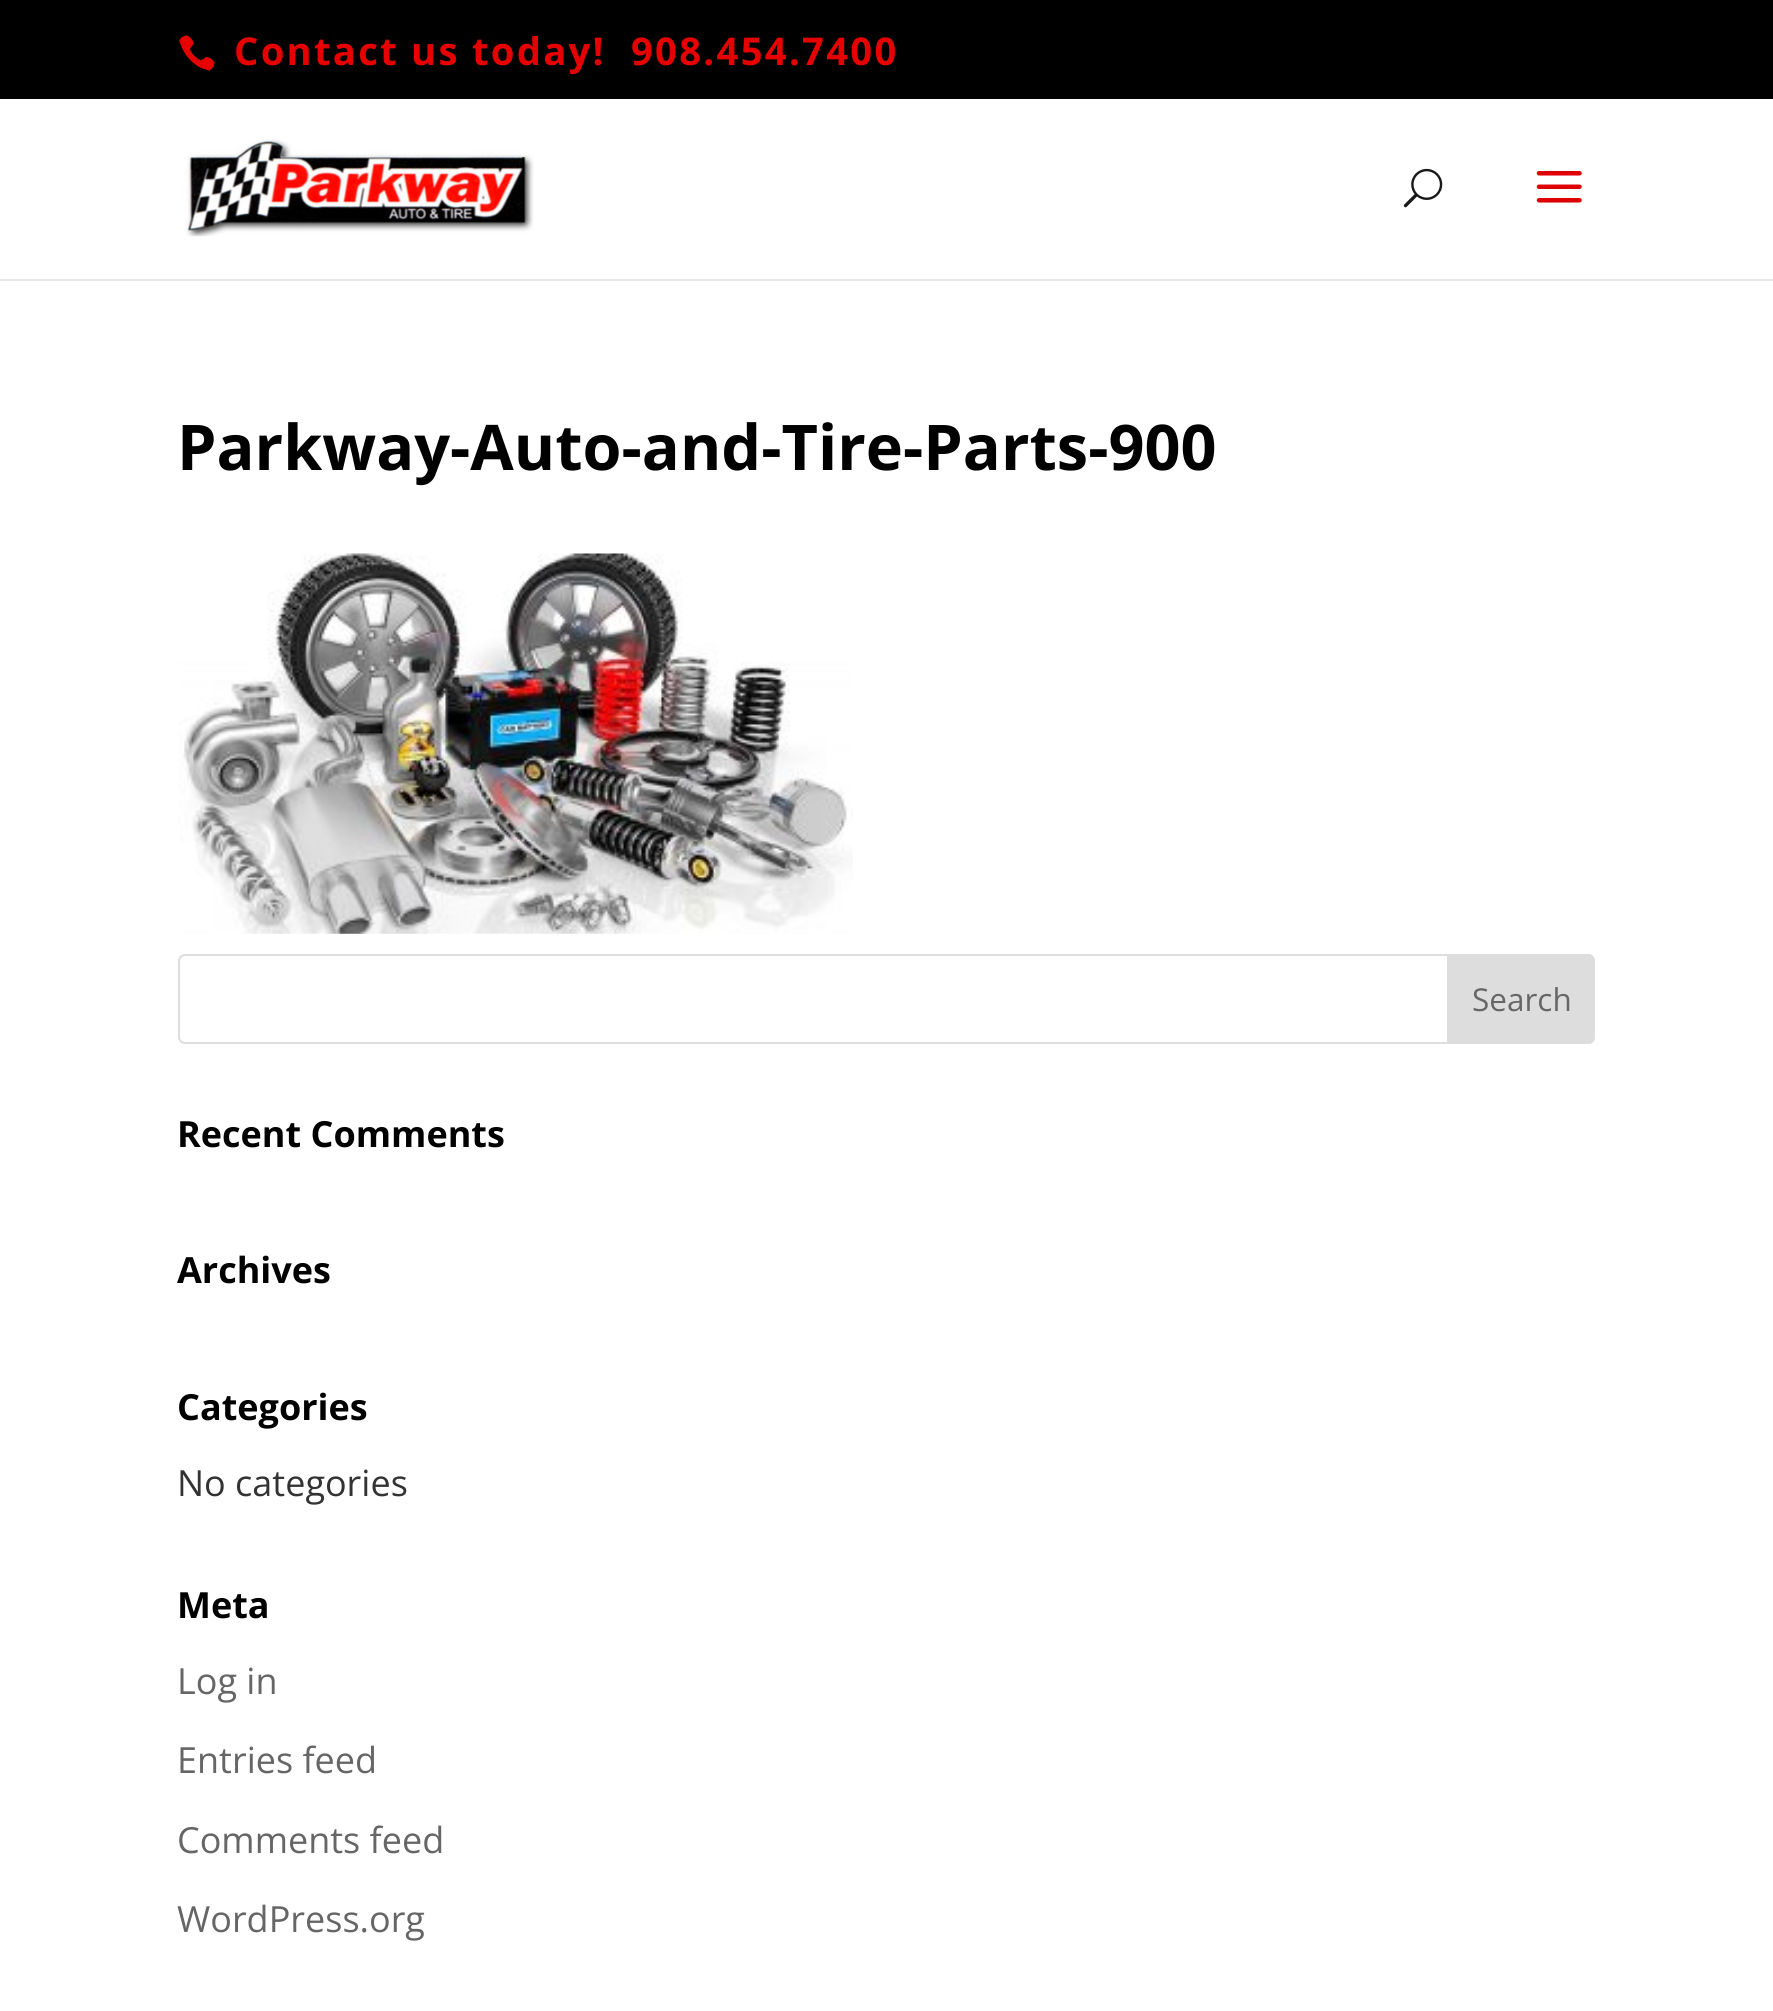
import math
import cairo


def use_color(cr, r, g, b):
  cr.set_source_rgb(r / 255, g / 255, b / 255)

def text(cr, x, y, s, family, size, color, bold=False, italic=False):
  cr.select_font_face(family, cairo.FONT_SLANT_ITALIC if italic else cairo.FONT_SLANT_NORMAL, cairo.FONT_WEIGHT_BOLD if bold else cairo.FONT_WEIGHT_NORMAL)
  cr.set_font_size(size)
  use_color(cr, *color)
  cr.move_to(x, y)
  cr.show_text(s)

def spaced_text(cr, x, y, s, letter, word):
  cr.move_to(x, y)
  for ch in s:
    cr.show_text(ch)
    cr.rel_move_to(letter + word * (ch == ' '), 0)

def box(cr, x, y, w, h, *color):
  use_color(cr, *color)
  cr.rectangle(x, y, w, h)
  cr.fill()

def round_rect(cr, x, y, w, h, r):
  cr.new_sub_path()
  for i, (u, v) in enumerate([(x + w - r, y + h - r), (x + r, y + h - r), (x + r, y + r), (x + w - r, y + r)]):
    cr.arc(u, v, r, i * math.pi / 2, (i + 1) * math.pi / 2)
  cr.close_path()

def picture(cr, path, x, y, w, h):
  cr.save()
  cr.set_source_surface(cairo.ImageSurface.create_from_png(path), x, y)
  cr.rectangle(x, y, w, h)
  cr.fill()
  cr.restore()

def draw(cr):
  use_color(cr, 255, 255, 255)
  cr.paint()
  box(cr, 0, 0, 1773, 99, 0, 0, 0)
  picture(cr, "img_01.png", 179, 35, 36, 36)
  box(cr, 0, 279, 1773, 2, 230, 230, 230)
  picture(cr, "img_02.png", 186, 139, 348, 98)
  picture(cr, "img_03.png", 1403, 168, 40, 40)
  picture(cr, "img_04.png", 1536, 171, 46, 32)
  picture(cr, "img_05.png", 178, 553, 675, 381)
  round_rect(cr, 179, 955, 1415, 88, 6)
  use_color(cr, 221, 221, 221)
  cr.stroke()
  cr.new_path()
  cr.move_to(1448, 955)
  cr.line_to(1588, 955)
  cr.curve_to(1591.5, 955, 1594, 957.5, 1594, 961)
  cr.line_to(1594, 1037)
  cr.curve_to(1594, 1040.5, 1591.5, 1043, 1588, 1043)
  cr.line_to(1448, 1043)
  cr.close_path()
  cr.fill_preserve()
  cr.stroke()
  cr.select_font_face("Open Sans", cairo.FONT_SLANT_NORMAL, cairo.FONT_WEIGHT_BOLD)
  cr.set_font_size(38.25)
  use_color(cr, 230, 0, 0)
  spaced_text(cr, 234, 65, "Contact us today!", 2.25, 0)
  spaced_text(cr, 631, 65, "908.454.7400", 2.25, 0)
  text(cr, 177, 470, "Parkway-Auto-and-Tire-Parts-900", "Open Sans", 63, (0, 0, 0), bold=True)
  text(cr, 1472, 1011, "Search", "Open Sans", 31.5, (102, 102, 102))
  text(cr, 177, 1147, "Recent Comments", "Open Sans", 36, (0, 0, 0), bold=True)
  text(cr, 177, 1283, "Archives", "Open Sans", 36, (0, 0, 0), bold=True)
  text(cr, 177, 1420, "Categories", "Open Sans", 36, (0, 0, 0), bold=True)
  text(cr, 177, 1496, "No categories", "Open Sans", 36, (51, 51, 51))
  text(cr, 177, 1618, "Meta", "Open Sans", 36, (0, 0, 0), bold=True)
  text(cr, 177, 1694, "Log in", "Open Sans", 36, (102, 102, 102))
  text(cr, 177, 1773, "Entries feed", "Open Sans", 36, (102, 102, 102))
  text(cr, 177, 1853, "Comments feed", "Open Sans", 36, (102, 102, 102))
  text(cr, 177, 1932, "WordPress.org", "Open Sans", 36, (102, 102, 102))


surface = cairo.ImageSurface(cairo.FORMAT_RGB24, 1773, 2011)
cr = cairo.Context(surface)
options = cairo.FontOptions()
options.set_hint_metrics(cairo.HINT_METRICS_OFF)
options.set_hint_style(cairo.HINT_STYLE_NONE)
cr.set_font_options(options)
cr.set_miter_limit(4)
draw(cr)
surface.write_to_png("out.png")
